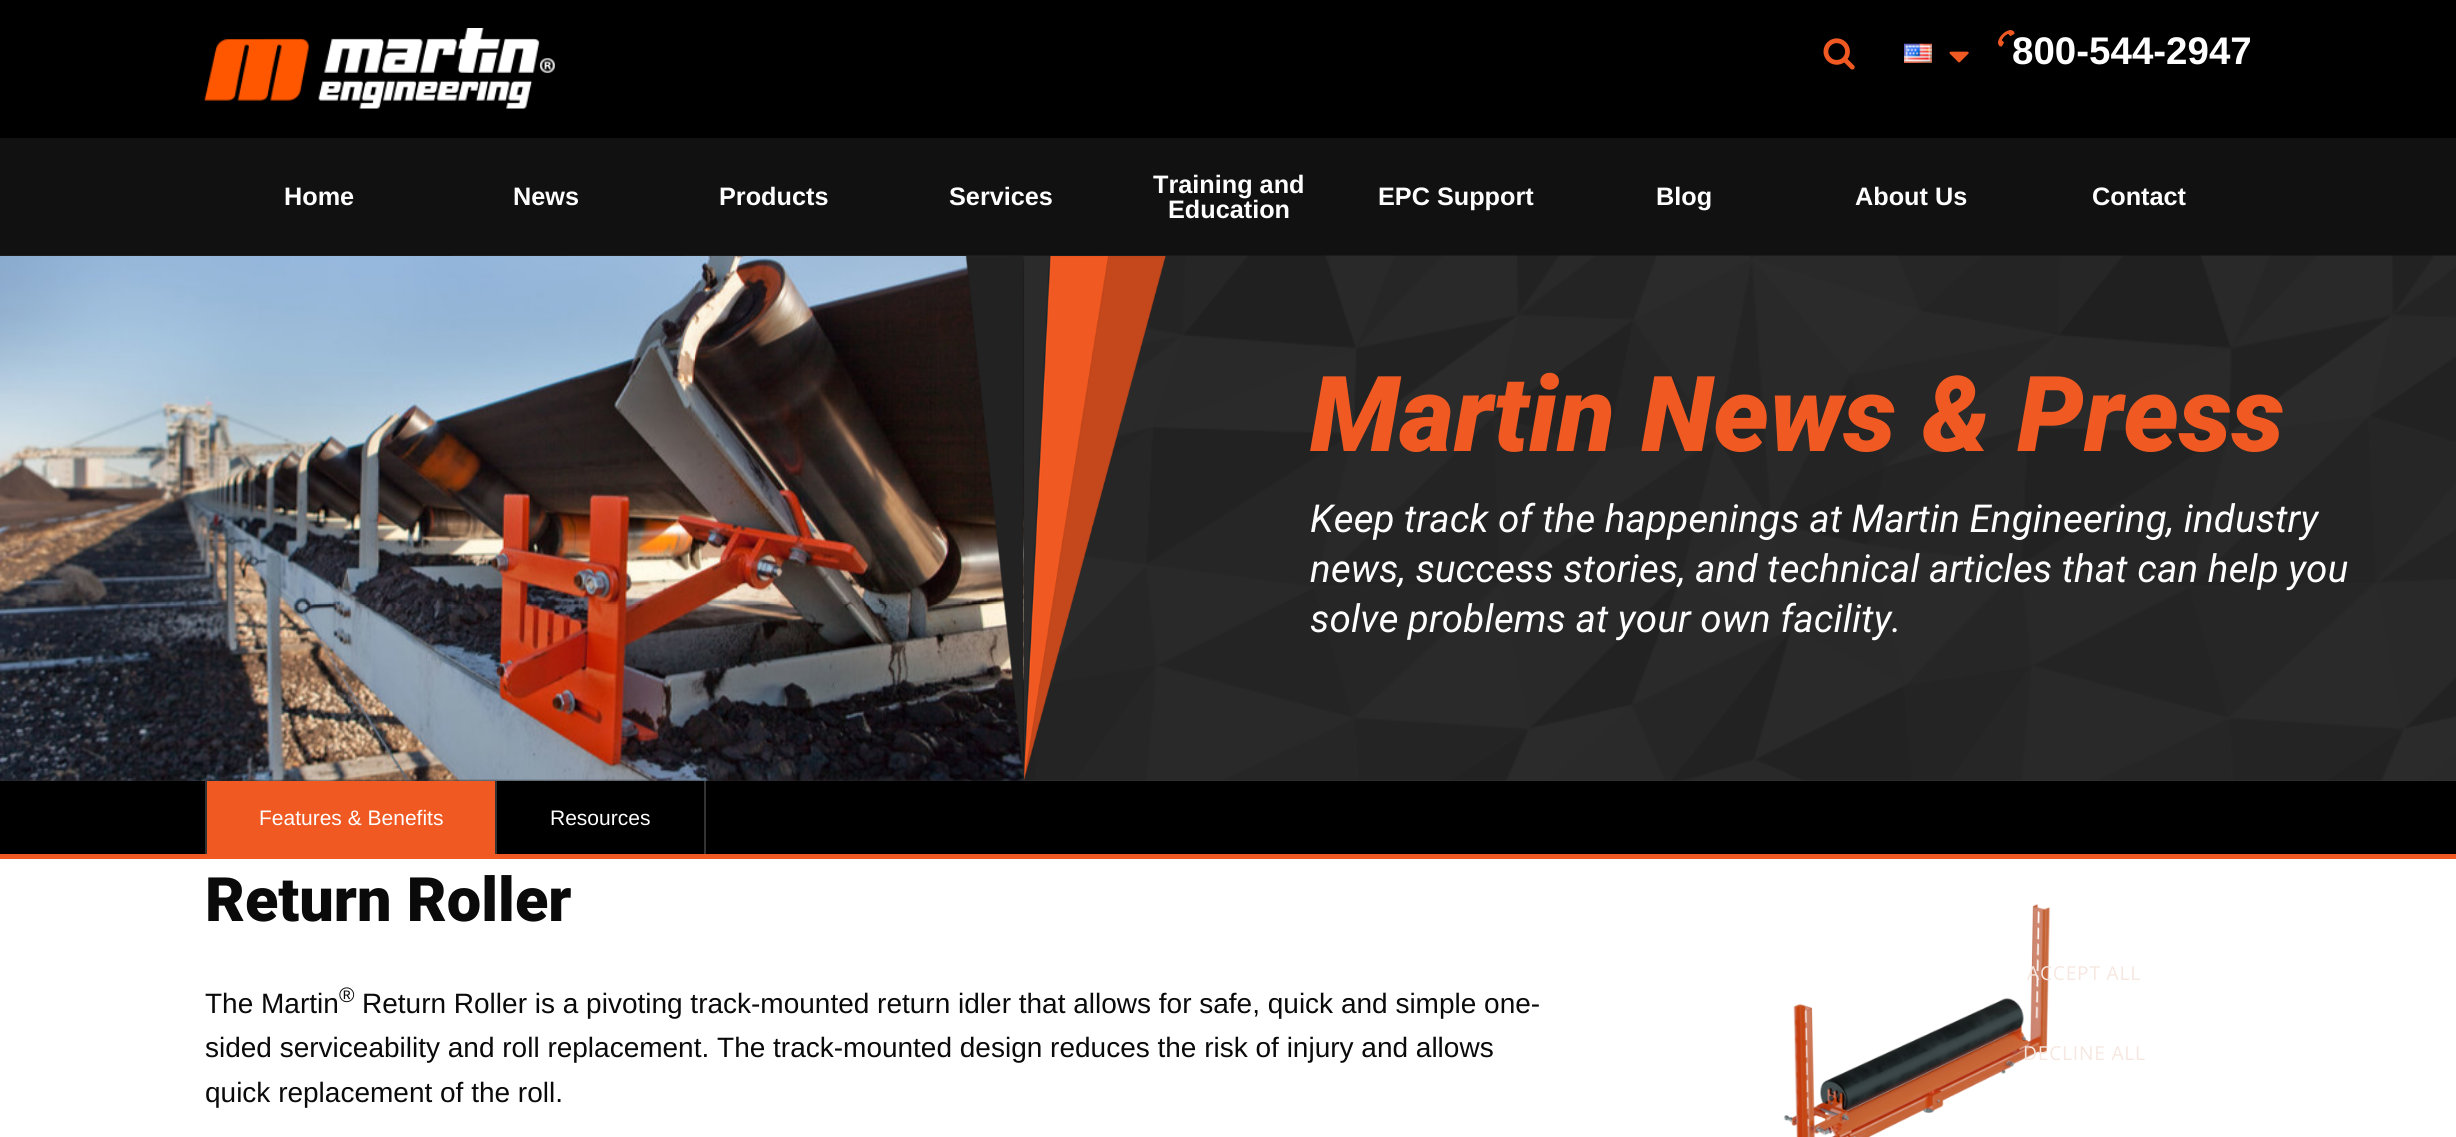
import math
import cairo


def use_color(cr, r, g, b):
  cr.set_source_rgb(r / 255, g / 255, b / 255)

def text(cr, x, y, s, family, size, color, bold=False, italic=False):
  cr.select_font_face(family, cairo.FONT_SLANT_ITALIC if italic else cairo.FONT_SLANT_NORMAL, cairo.FONT_WEIGHT_BOLD if bold else cairo.FONT_WEIGHT_NORMAL)
  cr.set_font_size(size)
  use_color(cr, *color)
  cr.move_to(x, y)
  cr.show_text(s)

def spaced_text(cr, x, y, s, letter, word):
  cr.move_to(x, y)
  for ch in s:
    cr.show_text(ch)
    cr.rel_move_to(letter + word * (ch == ' '), 0)

def box(cr, x, y, w, h, *color):
  use_color(cr, *color)
  cr.rectangle(x, y, w, h)
  cr.fill()

def picture(cr, path, x, y, w, h):
  cr.save()
  cr.set_source_surface(cairo.ImageSurface.create_from_png(path), x, y)
  cr.rectangle(x, y, w, h)
  cr.fill()
  cr.restore()

def draw(cr):
  use_color(cr, 255, 255, 255)
  cr.paint()
  box(cr, 0, 0, 2456, 138, 0, 0, 0)
  picture(cr, "img_01.png", 204, 28, 351, 81)
  picture(cr, "img_02.png", 1823, 38, 32, 32)
  picture(cr, "img_03.png", 1904, 43, 28, 20)
  picture(cr, "img_04.png", 1949, 51, 20, 12)
  box(cr, 0, 138, 2456, 118, 17, 17, 17)
  box(cr, 0, 780, 2456, 1, 51, 51, 51)
  picture(cr, "img_06.png", 0, 255, 2456, 526)
  picture(cr, "img_09.png", 1023, 256, 143, 525)
  picture(cr, "img_07.png", 0, 256, 1024, 525)
  picture(cr, "img_08.png", 965, 256, 59, 522)
  box(cr, 0, 781, 2456, 73, 0, 0, 0)
  box(cr, 0, 854, 2456, 5, 241, 89, 34)
  box(cr, 205, 781, 2, 73, 51, 51, 51)
  box(cr, 207, 781, 288, 73, 241, 89, 34)
  box(cr, 495, 781, 2, 73, 51, 51, 51)
  box(cr, 704, 781, 2, 73, 51, 51, 51)
  picture(cr, "img_10.png", 1783, 904, 268, 233)
  text(cr, 2012, 64, "800-544-2947", "Liberation Sans", 38.5, (254, 254, 254), bold=True)
  picture(cr, "img_05.png", 1998, 30, 17, 17)
  text(cr, 284, 205, "Home", "Liberation Sans", 25.25, (254, 254, 254), bold=True)
  text(cr, 513, 205, "News", "Liberation Sans", 25.25, (254, 254, 254), bold=True)
  text(cr, 719, 205, "Products", "Liberation Sans", 25.25, (254, 254, 254), bold=True)
  text(cr, 949, 205, "Services", "Liberation Sans", 25.25, (254, 254, 254), bold=True)
  text(cr, 1153, 193, "Training and", "Liberation Sans", 25.25, (254, 254, 254), bold=True)
  text(cr, 1168, 218, "Education", "Liberation Sans", 25.25, (254, 254, 254), bold=True)
  text(cr, 1378, 205, "EPC Support", "Liberation Sans", 25.25, (254, 254, 254), bold=True)
  text(cr, 1656, 205, "Blog", "Liberation Sans", 25.25, (254, 254, 254), bold=True)
  text(cr, 1855, 205, "About Us", "Liberation Sans", 25.25, (254, 254, 254), bold=True)
  text(cr, 2092, 205, "Contact", "Liberation Sans", 25.25, (254, 254, 254), bold=True)
  text(cr, 1310, 451, "Martin News & Press", "Roboto Black", 105, (241, 89, 34), italic=True)
  text(cr, 1310, 532, "Keep track of the happenings at Martin Engineering, industry", "Roboto", 38.5, (254, 254, 254), italic=True)
  text(cr, 1310, 582, "news, success stories, and technical articles that can help you", "Roboto", 38.5, (254, 254, 254), italic=True)
  text(cr, 1310, 632, "solve problems at your own facility.", "Roboto", 38.5, (254, 254, 254), italic=True)
  text(cr, 259, 825, "Features & Benefits", "Liberation Sans", 21, (254, 254, 254))
  text(cr, 550, 825, "Resources", "Liberation Sans", 21, (254, 254, 254))
  text(cr, 205, 921, "Return Roller", "Roboto Black", 61.25, (10, 10, 10))
  text(cr, 205, 1013, "The Martin", "Liberation Sans", 28, (10, 10, 10))
  text(cr, 339, 1002, "®", "Liberation Sans", 21, (10, 10, 10))
  text(cr, 362, 1013, "Return Roller is a pivoting track-mounted return idler that allows for safe, quick and simple one-", "Liberation Sans", 28, (10, 10, 10))
  text(cr, 205, 1057, "sided serviceability and roll replacement. The track-mounted design reduces the risk of injury and allows", "Liberation Sans", 28, (10, 10, 10))
  text(cr, 205, 1102, "quick replacement of the roll.", "Liberation Sans", 28, (10, 10, 10))
  cr.select_font_face("Open Sans")
  cr.set_font_size(19.25)
  use_color(cr, 246, 231, 225)
  spaced_text(cr, 2027, 980, "ACCEPT ALL", 0.75, 0)
  spaced_text(cr, 2023, 1060, "DECLINE ALL", 0.75, 0)


surface = cairo.ImageSurface(cairo.FORMAT_RGB24, 2456, 1137)
cr = cairo.Context(surface)
options = cairo.FontOptions()
options.set_hint_metrics(cairo.HINT_METRICS_OFF)
options.set_hint_style(cairo.HINT_STYLE_NONE)
cr.set_font_options(options)
cr.set_miter_limit(4)
draw(cr)
surface.write_to_png("out.png")
